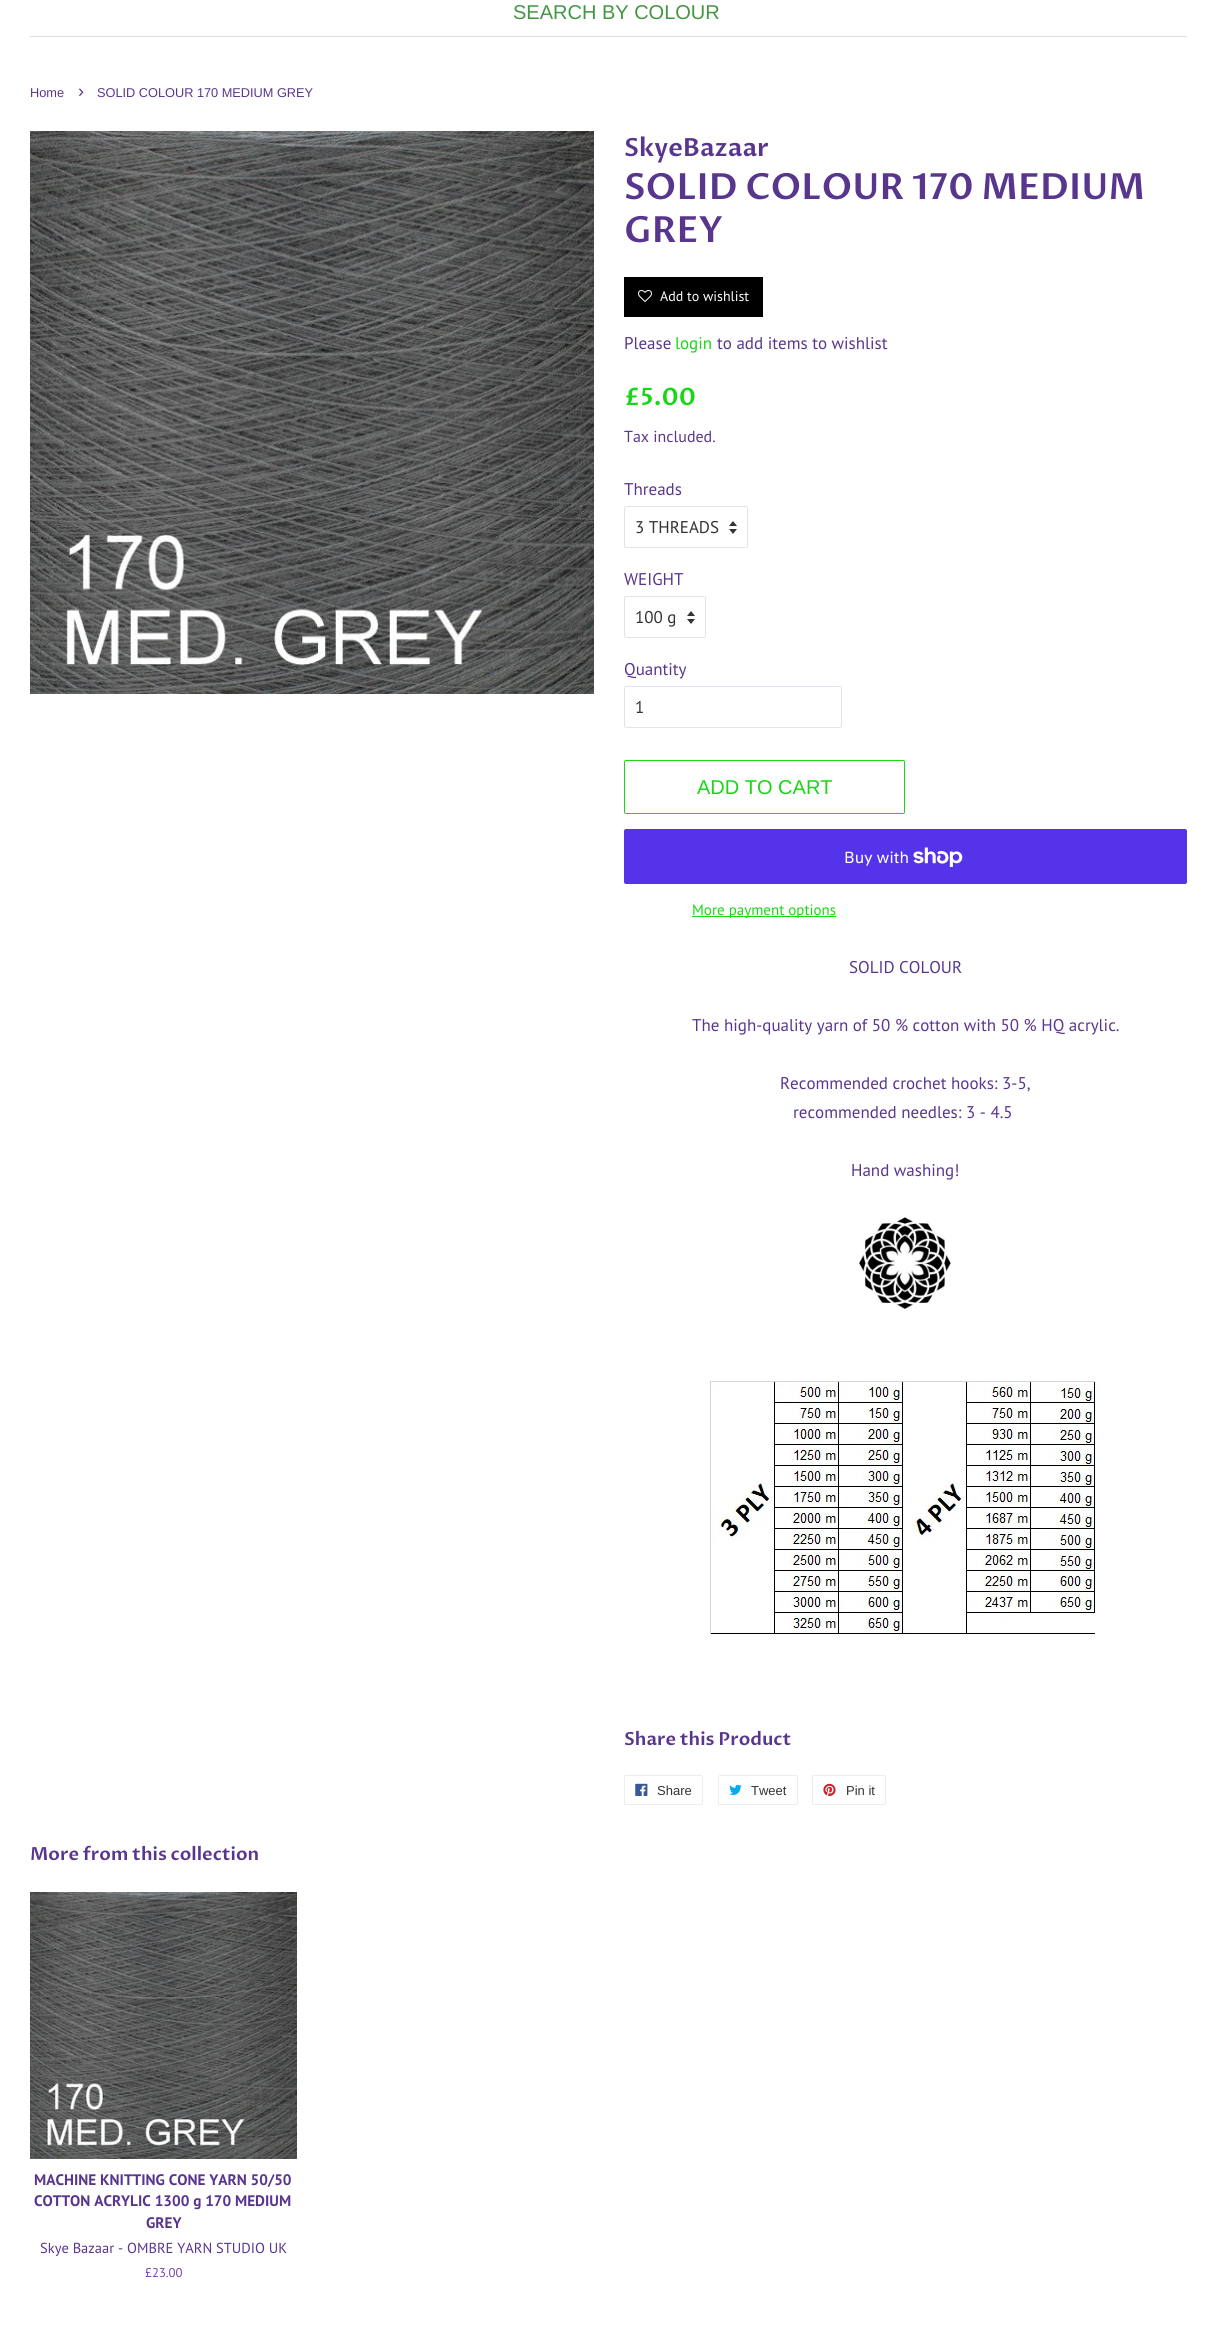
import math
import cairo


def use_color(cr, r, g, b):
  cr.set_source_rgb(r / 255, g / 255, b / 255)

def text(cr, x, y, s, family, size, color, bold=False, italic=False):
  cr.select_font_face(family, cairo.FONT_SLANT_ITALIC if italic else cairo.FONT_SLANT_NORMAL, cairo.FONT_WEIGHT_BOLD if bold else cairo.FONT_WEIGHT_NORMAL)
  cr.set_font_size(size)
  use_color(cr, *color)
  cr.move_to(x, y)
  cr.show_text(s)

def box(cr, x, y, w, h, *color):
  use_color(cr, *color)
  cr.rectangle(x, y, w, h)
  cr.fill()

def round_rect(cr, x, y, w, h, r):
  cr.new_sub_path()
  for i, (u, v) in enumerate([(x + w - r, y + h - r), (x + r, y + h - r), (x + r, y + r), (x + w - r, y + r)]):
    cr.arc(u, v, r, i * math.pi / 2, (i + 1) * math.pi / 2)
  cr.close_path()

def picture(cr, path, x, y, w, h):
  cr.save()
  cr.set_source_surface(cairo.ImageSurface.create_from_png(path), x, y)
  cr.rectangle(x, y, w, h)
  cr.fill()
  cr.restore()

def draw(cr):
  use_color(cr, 255, 255, 255)
  cr.paint()
  box(cr, 30, 36, 1157, 1, 221, 221, 221)
  picture(cr, "img_01.png", 30, 131, 564, 563)
  box(cr, 624, 277, 139, 40, 0, 0, 0)
  picture(cr, "img_02.png", 638, 290, 14, 12)
  picture(cr, "img_03.png", 729, 521, 8, 13)
  round_rect(cr, 624.5, 506.5, 123, 41, 1.5)
  use_color(cr, 230, 225, 238)
  cr.set_line_width(1)
  cr.stroke()
  picture(cr, "img_03.png", 687, 611, 8, 13)
  round_rect(cr, 624.5, 596.5, 81, 41, 1.5)
  cr.stroke()
  round_rect(cr, 624.5, 686.5, 217, 41, 1.5)
  cr.stroke()
  round_rect(cr, 624.5, 760.5, 280, 53, 1.5)
  use_color(cr, 24, 215, 21)
  cr.stroke()
  use_color(cr, 84, 51, 235)
  round_rect(cr, 624, 829, 563, 55, 2)
  cr.fill()
  picture(cr, "img_04.png", 913, 847, 50, 20)
  box(cr, 692, 916, 144, 1, 24, 215, 21)
  picture(cr, "img_05.png", 859, 1217, 92, 93)
  picture(cr, "img_06.png", 710, 1381, 390, 256)
  round_rect(cr, 624.5, 1775.5, 78, 29, 1.5)
  use_color(cr, 236, 236, 236)
  cr.stroke()
  picture(cr, "img_07.png", 635, 1783, 13, 13)
  round_rect(cr, 718.5, 1775.5, 79, 29, 1.5)
  cr.stroke()
  picture(cr, "img_08.png", 729, 1784, 13, 11)
  round_rect(cr, 812.5, 1775.5, 73, 29, 1.5)
  cr.stroke()
  picture(cr, "img_09.png", 823, 1783, 13, 13)
  picture(cr, "img_10.png", 30, 1892, 267, 267)
  text(cr, 513, 19, "SEARCH BY COLOUR", "Arimo", 20, (68, 151, 66))
  text(cr, 30, 97, "Home", "Arimo", 12.75, (89, 54, 142))
  text(cr, 78, 97, "›", "Arimo", 18, (89, 54, 142))
  text(cr, 97, 97, "SOLID COLOUR 170 MEDIUM GREY", "Arimo", 12.75, (89, 54, 142))
  text(cr, 624, 156, "SkyeBazaar", "Proza Libre SemiBold", 25, (89, 54, 142))
  text(cr, 624, 199, "SOLID COLOUR 170 MEDIUM", "Proza Libre SemiBold", 36, (89, 54, 142))
  text(cr, 624, 242, "GREY", "Proza Libre SemiBold", 36, (89, 54, 142))
  text(cr, 660, 301, "Add to wishlist", "PT Sans", 14, (255, 255, 255))
  text(cr, 624, 349, "Please", "PT Sans", 17, (89, 54, 142))
  text(cr, 675, 349, "login", "PT Sans", 17, (24, 215, 21))
  text(cr, 717, 349, "to add items to wishlist", "PT Sans", 17, (89, 54, 142))
  text(cr, 624, 405, "£5.00", "Proza Libre SemiBold", 24, (24, 215, 21))
  text(cr, 624, 442, "Tax included.", "PT Sans", 16, (89, 54, 142))
  text(cr, 624, 495, "Threads", "PT Sans", 17, (89, 54, 142))
  text(cr, 635, 533, "3 THREADS", "PT Sans", 17, (51, 51, 51))
  text(cr, 624, 585, "WEIGHT", "PT Sans", 17, (89, 54, 142))
  text(cr, 635, 623, "100 g", "PT Sans", 17, (51, 51, 51))
  text(cr, 624, 675, "Quantity", "PT Sans", 17, (89, 54, 142))
  text(cr, 635, 713, "1", "PT Sans", 17, (51, 51, 51))
  text(cr, 697, 794, "ADD TO CART", "Arimo", 20, (24, 215, 21))
  text(cr, 844, 863, "Buy with", "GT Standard", 16, (255, 255, 255))
  text(cr, 692, 915, "More payment options", "PT Sans", 15, (24, 215, 21))
  text(cr, 849, 973, "SOLID COLOUR", "PT Sans", 17, (89, 54, 142))
  text(cr, 692, 1031, "The high-quality yarn of 50 % cotton with 50 % HQ acrylic.", "PT Sans", 17, (89, 54, 142))
  text(cr, 780, 1089, "Recommended crochet hooks: 3-5,", "PT Sans", 17, (89, 54, 142))
  text(cr, 793, 1118, "recommended needles: 3 - 4.5", "PT Sans", 17, (89, 54, 142))
  text(cr, 851, 1176, "Hand washing!", "PT Sans", 17, (89, 54, 142))
  text(cr, 624, 1745, "Share this Product", "Proza Libre SemiBold", 18, (89, 54, 142))
  text(cr, 657, 1795, "Share", "Liberation Sans", 13, (51, 51, 51))
  text(cr, 751, 1795, "Tweet", "Liberation Sans", 13, (51, 51, 51))
  text(cr, 846, 1795, "Pin it", "Liberation Sans", 13, (51, 51, 51))
  text(cr, 30, 1860, "More from this collection", "Proza Libre SemiBold", 18, (89, 54, 142))
  text(cr, 34, 2185, "MACHINE KNITTING CONE YARN 50/50", "PT Sans", 15.25, (89, 54, 142), bold=True)
  text(cr, 34, 2206, "COTTON ACRYLIC 1300 g 170 MEDIUM", "PT Sans", 15.25, (89, 54, 142), bold=True)
  text(cr, 146, 2228, "GREY", "PT Sans", 15.25, (89, 54, 142), bold=True)
  text(cr, 40, 2253, "Skye Bazaar - OMBRE YARN STUDIO UK", "PT Sans", 14.5, (89, 54, 142))
  text(cr, 145, 2277, "£23.00", "PT Sans", 12.75, (112, 68, 179))


surface = cairo.ImageSurface(cairo.FORMAT_RGB24, 1217, 2350)
cr = cairo.Context(surface)
options = cairo.FontOptions()
options.set_hint_metrics(cairo.HINT_METRICS_OFF)
options.set_hint_style(cairo.HINT_STYLE_NONE)
cr.set_font_options(options)
cr.set_miter_limit(4)
draw(cr)
surface.write_to_png("out.png")
